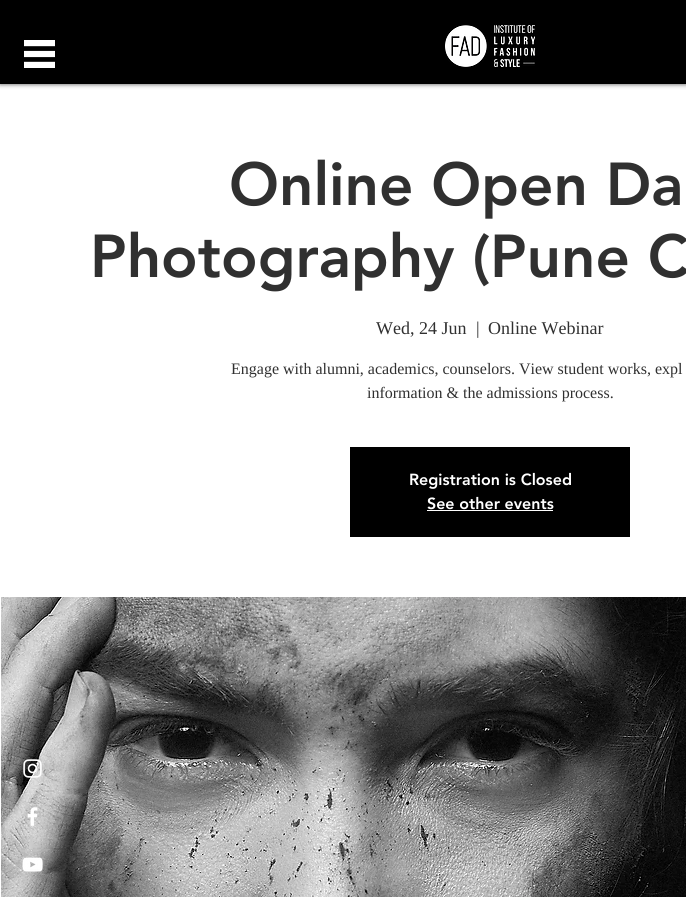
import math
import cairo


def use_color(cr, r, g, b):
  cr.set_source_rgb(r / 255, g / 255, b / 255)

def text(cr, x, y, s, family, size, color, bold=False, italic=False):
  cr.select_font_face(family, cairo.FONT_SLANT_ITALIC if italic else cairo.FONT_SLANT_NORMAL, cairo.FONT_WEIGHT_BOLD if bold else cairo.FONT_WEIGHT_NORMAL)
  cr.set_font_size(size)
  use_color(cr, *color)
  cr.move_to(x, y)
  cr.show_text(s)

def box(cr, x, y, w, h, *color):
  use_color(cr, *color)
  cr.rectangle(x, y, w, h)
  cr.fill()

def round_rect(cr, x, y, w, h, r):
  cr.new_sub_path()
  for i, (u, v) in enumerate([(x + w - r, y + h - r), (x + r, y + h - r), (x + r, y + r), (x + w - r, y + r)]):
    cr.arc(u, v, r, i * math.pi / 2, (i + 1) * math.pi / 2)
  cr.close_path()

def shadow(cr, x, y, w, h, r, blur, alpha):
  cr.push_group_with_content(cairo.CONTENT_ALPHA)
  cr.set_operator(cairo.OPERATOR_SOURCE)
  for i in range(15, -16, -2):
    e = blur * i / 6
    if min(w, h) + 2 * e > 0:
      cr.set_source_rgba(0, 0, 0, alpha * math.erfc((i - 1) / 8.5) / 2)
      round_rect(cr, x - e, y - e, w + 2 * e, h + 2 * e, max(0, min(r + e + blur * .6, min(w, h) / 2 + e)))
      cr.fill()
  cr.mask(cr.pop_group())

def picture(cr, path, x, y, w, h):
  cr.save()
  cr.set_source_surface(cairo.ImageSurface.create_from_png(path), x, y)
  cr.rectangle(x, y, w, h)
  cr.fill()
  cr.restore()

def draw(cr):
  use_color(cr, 255, 255, 255)
  cr.paint()
  use_color(cr, 0, 0, 0)
  shadow(cr, 0, 0, 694, 84, 0, 2.5, 0.7)
  box(cr, 0, 0, 686, 84, 0, 0, 0)
  picture(cr, "img_01.png", 445, 25, 90, 42)
  picture(cr, "img_02.png", 24, 40, 31, 28)
  box(cr, 350, 447, 280, 90, 0, 0, 0)
  box(cr, 427, 510, 126, 1, 255, 255, 255)
  picture(cr, "img_03.png", 1, 597, 685, 300)
  picture(cr, "img_04.png", 23, 759, 19, 19)
  picture(cr, "img_05.png", 27, 807, 11, 19)
  picture(cr, "img_06.png", 22, 857, 21, 15)
  text(cr, 229, 205, "Online Open Da", "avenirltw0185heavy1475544 Black", 60, (48, 48, 48))
  text(cr, 90, 277, "Photography (Pune C", "avenirltw0185heavy1475544 Black", 60, (48, 48, 48))
  text(cr, 376, 334, "Wed, 24 Jun", "Liberation Serif", 18, (48, 48, 48))
  text(cr, 476, 334, "|", "Liberation Serif", 18, (48, 48, 48))
  text(cr, 488, 334, "Online Webinar", "Liberation Serif", 18, (48, 48, 48))
  text(cr, 231, 374, "Engage with alumni, academics, counselors. View student works, expl", "Liberation Serif", 16, (48, 48, 48))
  text(cr, 367, 398, "information & the admissions process.", "Liberation Serif", 16, (48, 48, 48))
  text(cr, 409, 485, "Registration is Closed", "avenirltw0185heavy1475544 Black", 16, (255, 255, 255))
  text(cr, 427, 509, "See other events", "avenirltw0185heavy1475544 Black", 16, (255, 255, 255))


surface = cairo.ImageSurface(cairo.FORMAT_RGB24, 686, 897)
cr = cairo.Context(surface)
options = cairo.FontOptions()
options.set_hint_metrics(cairo.HINT_METRICS_OFF)
options.set_hint_style(cairo.HINT_STYLE_NONE)
cr.set_font_options(options)
cr.set_miter_limit(4)
draw(cr)
surface.write_to_png("out.png")
